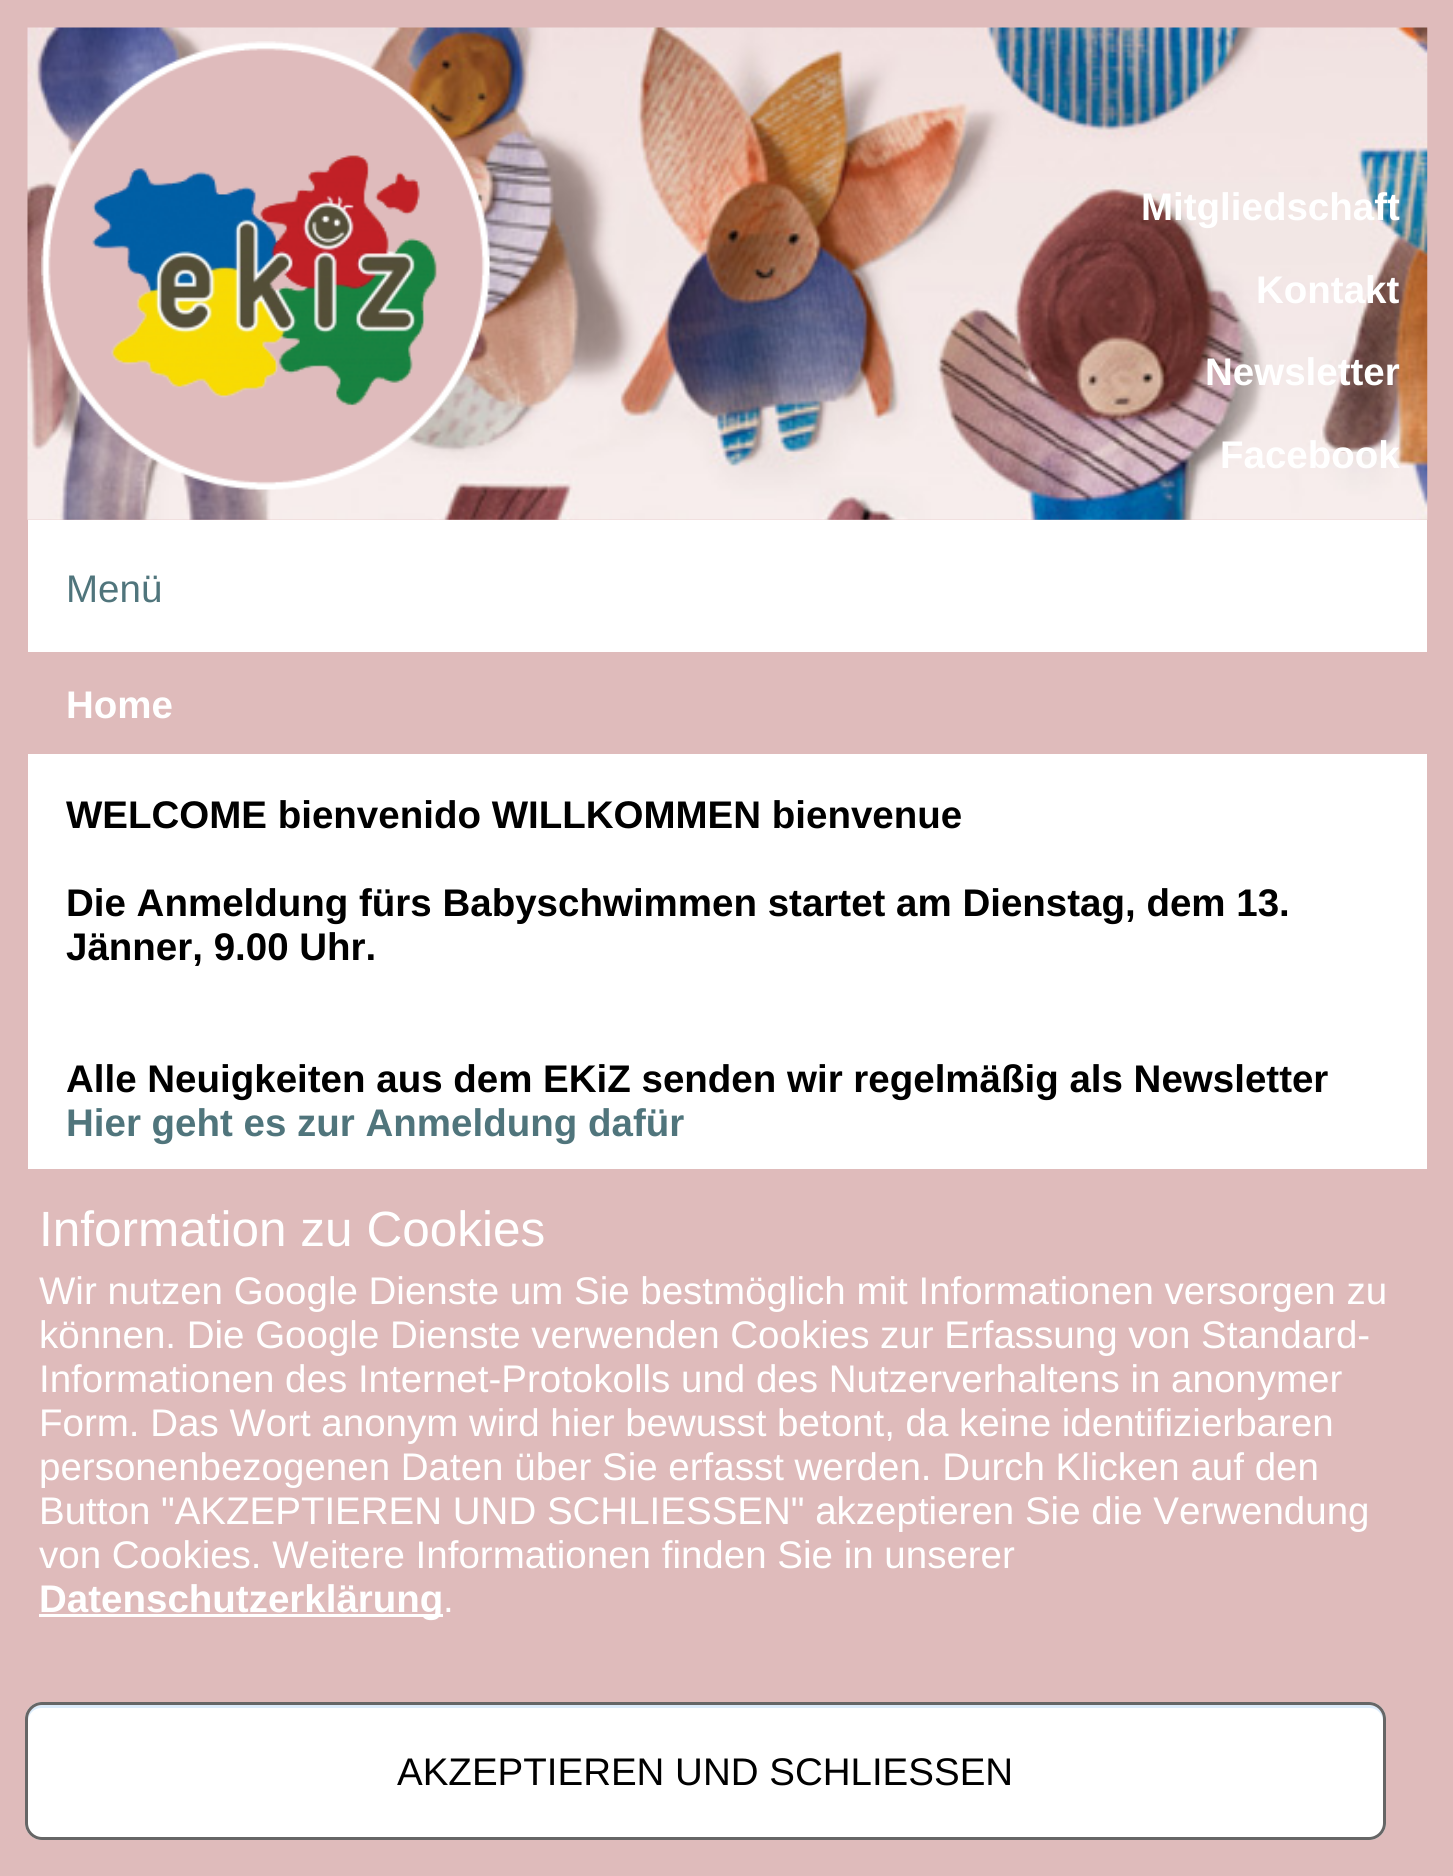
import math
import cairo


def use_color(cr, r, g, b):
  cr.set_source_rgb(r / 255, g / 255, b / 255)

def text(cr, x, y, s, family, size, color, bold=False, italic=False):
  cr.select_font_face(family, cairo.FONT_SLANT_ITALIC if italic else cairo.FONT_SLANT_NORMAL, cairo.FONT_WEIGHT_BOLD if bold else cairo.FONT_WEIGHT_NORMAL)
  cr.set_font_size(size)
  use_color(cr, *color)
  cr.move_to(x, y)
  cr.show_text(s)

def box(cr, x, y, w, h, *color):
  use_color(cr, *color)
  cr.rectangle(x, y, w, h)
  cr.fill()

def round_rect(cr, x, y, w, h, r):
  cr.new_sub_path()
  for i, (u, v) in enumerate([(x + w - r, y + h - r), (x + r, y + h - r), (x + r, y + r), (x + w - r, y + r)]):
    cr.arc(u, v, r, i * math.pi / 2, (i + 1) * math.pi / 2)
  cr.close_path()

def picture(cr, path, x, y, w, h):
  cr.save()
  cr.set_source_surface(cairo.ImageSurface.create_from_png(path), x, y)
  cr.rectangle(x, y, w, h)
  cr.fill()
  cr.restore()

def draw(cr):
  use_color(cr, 223, 187, 187)
  cr.paint()
  picture(cr, "img_01.png", 27, 27, 1401, 493)
  picture(cr, "img_02.png", 41, 41, 449, 449)
  box(cr, 28, 520, 1399, 132, 255, 255, 255)
  box(cr, 28, 754, 1399, 415, 255, 255, 255)
  box(cr, 39, 1614, 404, 3, 255, 255, 255)
  round_rect(cr, 25, 1702, 1361, 138, 17)
  cr.fill()
  use_color(cr, 220, 236, 251)
  cr.new_path()
  cr.move_to(41, 1708)
  cr.line_to(1370, 1708)
  cr.curve_to(1377, 1708, 1383, 1714, 1383, 1722)
  cr.line_to(1383, 1719)
  cr.curve_to(1383, 1711, 1377, 1705, 1369, 1705)
  cr.line_to(42, 1705)
  cr.curve_to(34, 1705, 28, 1711, 28, 1719)
  cr.line_to(28, 1722)
  cr.curve_to(28, 1714, 34, 1708, 41, 1708)
  cr.close_path()
  cr.fill()
  round_rect(cr, 26.5, 1703.5, 1358, 135, 15.5)
  use_color(cr, 102, 102, 102)
  cr.set_line_width(3)
  cr.stroke()
  text(cr, 1141, 220, "Mitgliedschaft", "Liberation Sans", 38.5, (255, 255, 255), bold=True)
  text(cr, 1256, 303, "Kontakt", "Liberation Sans", 38.5, (255, 255, 255), bold=True)
  text(cr, 1205, 385, "Newsletter", "Liberation Sans", 38.5, (255, 255, 255), bold=True)
  text(cr, 1220, 468, "Facebook", "Liberation Sans", 38.5, (255, 255, 255), bold=True)
  text(cr, 66, 602, "Menü", "Liberation Sans", 38.5, (80, 117, 124))
  text(cr, 66, 718, "Home", "Liberation Sans", 38.5, (255, 255, 255), bold=True)
  text(cr, 66, 828, "WELCOME bienvenido WILLKOMMEN bienvenue", "Liberation Sans", 38.5, (0, 0, 0), bold=True)
  text(cr, 66, 916, "Die Anmeldung fürs Babyschwimmen startet am Dienstag, dem 13.", "Liberation Sans", 38.5, (0, 0, 0), bold=True)
  text(cr, 66, 960, "Jänner, 9.00 Uhr.", "Liberation Sans", 38.5, (0, 0, 0), bold=True)
  text(cr, 66, 1092, "Alle Neuigkeiten aus dem EKiZ senden wir regelmäßig als Newsletter", "Liberation Sans", 38.5, (0, 0, 0), bold=True)
  text(cr, 66, 1136, "Hier geht es zur Anmeldung dafür", "Liberation Sans", 38.5, (80, 117, 124), bold=True)
  text(cr, 39, 1246, "Information zu Cookies", "Liberation Sans", 49.5, (255, 255, 255))
  text(cr, 39, 1304, "Wir nutzen Google Dienste um Sie bestmöglich mit Informationen versorgen zu", "Liberation Sans", 38.5, (255, 255, 255))
  text(cr, 39, 1348, "können. Die Google Dienste verwenden Cookies zur Erfassung von Standard-", "Liberation Sans", 38.5, (255, 255, 255))
  text(cr, 39, 1392, "Informationen des Internet-Protokolls und des Nutzerverhaltens in anonymer", "Liberation Sans", 38.5, (255, 255, 255))
  text(cr, 39, 1436, "Form. Das Wort anonym wird hier bewusst betont, da keine identifizierbaren", "Liberation Sans", 38.5, (255, 255, 255))
  text(cr, 39, 1480, "personenbezogenen Daten über Sie erfasst werden. Durch Klicken auf den", "Liberation Sans", 38.5, (255, 255, 255))
  text(cr, 39, 1524, "Button \"AKZEPTIEREN UND SCHLIESSEN\" akzeptieren Sie die Verwendung", "Liberation Sans", 38.5, (255, 255, 255))
  text(cr, 39, 1568, "von Cookies. Weitere Informationen finden Sie in unserer", "Liberation Sans", 38.5, (255, 255, 255))
  text(cr, 39, 1612, "Datenschutzerklärung", "Liberation Sans", 38.5, (255, 255, 255), bold=True)
  text(cr, 443, 1612, ".", "Liberation Sans", 38.5, (255, 255, 255))
  text(cr, 397, 1785, "AKZEPTIEREN UND SCHLIESSEN", "Liberation Sans", 38.5, (0, 0, 0))


surface = cairo.ImageSurface(cairo.FORMAT_RGB24, 1453, 1876)
cr = cairo.Context(surface)
options = cairo.FontOptions()
options.set_hint_metrics(cairo.HINT_METRICS_OFF)
options.set_hint_style(cairo.HINT_STYLE_NONE)
cr.set_font_options(options)
cr.set_miter_limit(4)
draw(cr)
surface.write_to_png("out.png")
